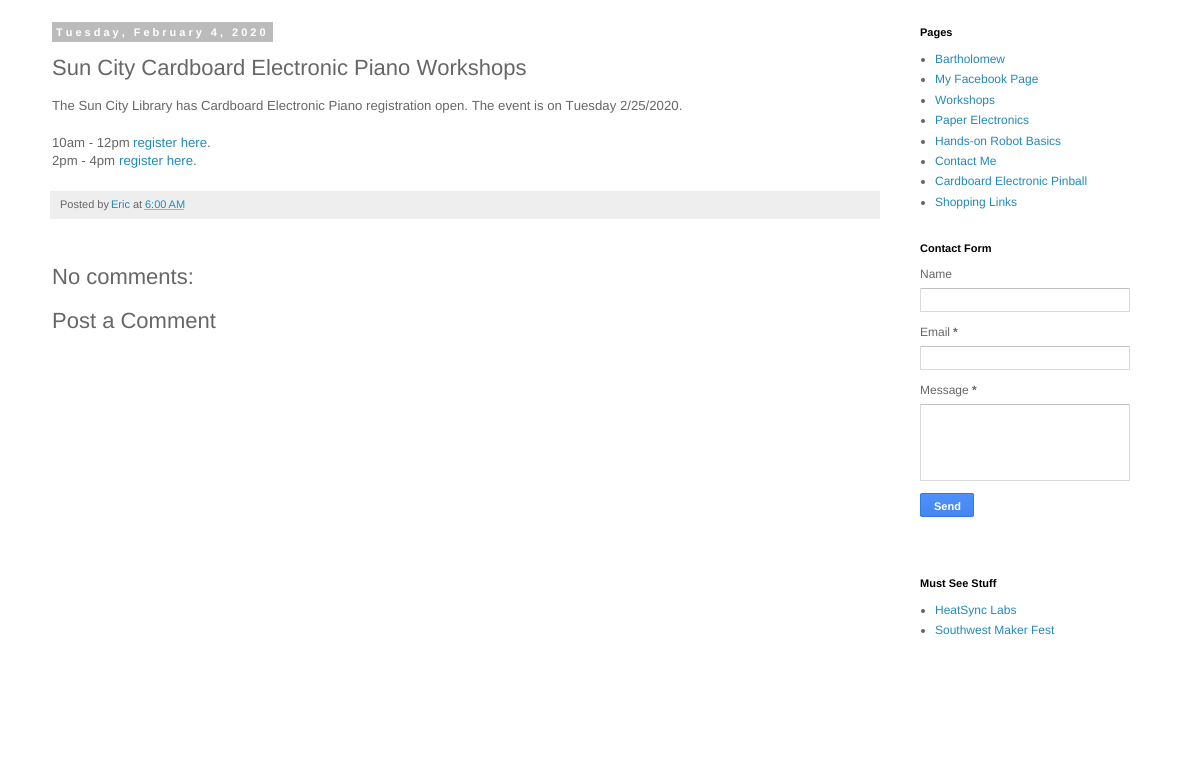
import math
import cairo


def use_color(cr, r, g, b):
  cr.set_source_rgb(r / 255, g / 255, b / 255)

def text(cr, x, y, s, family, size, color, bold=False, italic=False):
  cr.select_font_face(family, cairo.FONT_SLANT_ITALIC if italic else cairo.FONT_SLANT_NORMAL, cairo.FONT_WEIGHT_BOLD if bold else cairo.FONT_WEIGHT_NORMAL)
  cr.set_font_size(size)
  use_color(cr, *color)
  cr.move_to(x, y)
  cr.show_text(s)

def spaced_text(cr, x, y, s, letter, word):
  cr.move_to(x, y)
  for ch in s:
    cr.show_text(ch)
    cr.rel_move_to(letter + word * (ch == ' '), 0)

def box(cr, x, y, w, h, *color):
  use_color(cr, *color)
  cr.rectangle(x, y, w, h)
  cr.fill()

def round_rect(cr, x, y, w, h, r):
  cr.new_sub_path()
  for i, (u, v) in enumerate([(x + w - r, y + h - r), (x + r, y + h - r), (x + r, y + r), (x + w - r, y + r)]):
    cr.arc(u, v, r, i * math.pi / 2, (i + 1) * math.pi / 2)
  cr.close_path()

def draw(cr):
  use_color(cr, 255, 255, 255)
  cr.paint()
  box(cr, 52, 22, 221, 20, 187, 187, 187)
  box(cr, 50, 191, 830, 28, 238, 238, 238)
  cr.new_path()
  cr.move_to(144.5, 209.5)
  cr.line_to(184, 209.5)
  use_color(cr, 34, 136, 187)
  cr.set_line_width(1)
  cr.set_dash([1, 1])
  cr.stroke()
  use_color(cr, 102, 102, 102)
  cr.arc(923, 60, 2, 0, 2 * math.pi)
  cr.fill()
  cr.arc(923, 80, 2, 0, 2 * math.pi)
  cr.fill()
  cr.arc(923, 101, 2, 0, 2 * math.pi)
  cr.fill()
  cr.arc(923, 121, 2, 0, 2 * math.pi)
  cr.fill()
  cr.arc(923, 142, 2, 0, 2 * math.pi)
  cr.fill()
  cr.arc(923, 162, 2, 0, 2 * math.pi)
  cr.fill()
  cr.arc(923, 182, 2, 0, 2 * math.pi)
  cr.fill()
  cr.arc(923, 203, 2, 0, 2 * math.pi)
  cr.fill()
  box(cr, 920, 288, 210, 1, 192, 192, 192)
  box(cr, 1129, 288, 1, 24, 217, 217, 217)
  box(cr, 920, 311, 210, 1, 217, 217, 217)
  box(cr, 920, 288, 1, 24, 217, 217, 217)
  box(cr, 920, 346, 210, 1, 192, 192, 192)
  box(cr, 1129, 346, 1, 24, 217, 217, 217)
  box(cr, 920, 369, 210, 1, 217, 217, 217)
  box(cr, 920, 346, 1, 24, 217, 217, 217)
  box(cr, 920, 404, 210, 1, 192, 192, 192)
  box(cr, 1129, 404, 1, 77, 217, 217, 217)
  box(cr, 920, 480, 210, 1, 217, 217, 217)
  box(cr, 920, 404, 1, 77, 217, 217, 217)
  cr.save()
  round_rect(cr, 920, 493, 54, 24, 2)
  cr.clip()
  gradient = cairo.LinearGradient(947, 494, 947, 516)
  gradient.add_color_stop_rgba(0, 0.302, 0.565, 0.996, 1)
  gradient.add_color_stop_rgba(1, 0.278, 0.529, 0.929, 1)
  cr.set_source(gradient)
  cr.rectangle(920, 494, 54, 22)
  cr.fill()
  cr.restore()
  round_rect(cr, 920.5, 493.5, 53, 23, 1.5)
  use_color(cr, 48, 121, 237)
  cr.set_dash([])
  cr.stroke()
  use_color(cr, 102, 102, 102)
  cr.arc(923, 611, 2, 0, 2 * math.pi)
  cr.fill()
  cr.arc(923, 631, 2, 0, 2 * math.pi)
  cr.fill()
  cr.select_font_face("Liberation Sans", cairo.FONT_SLANT_NORMAL, cairo.FONT_WEIGHT_BOLD)
  cr.set_font_size(11)
  use_color(cr, 255, 255, 255)
  spaced_text(cr, 56, 36, "Tuesday, February 4, 2020", 3, 0)
  text(cr, 52, 75, "Sun City Cardboard Electronic Piano Workshops", "Liberation Sans", 22, (102, 102, 102))
  text(cr, 52, 110, "The Sun City Library has Cardboard Electronic Piano registration open. The event is on Tuesday 2/25/2020.", "Liberation Sans", 13.2, (102, 102, 102))
  text(cr, 52, 147, "10am - 12pm", "Liberation Sans", 13.2, (102, 102, 102))
  text(cr, 133, 147, "register here", "Liberation Sans", 13.2, (34, 136, 187))
  text(cr, 207, 147, ".", "Liberation Sans", 13.2, (102, 102, 102))
  text(cr, 52, 165, "2pm - 4pm", "Liberation Sans", 13.2, (102, 102, 102))
  text(cr, 119, 165, "register here", "Liberation Sans", 13.2, (34, 136, 187))
  text(cr, 193, 165, ".", "Liberation Sans", 13.2, (102, 102, 102))
  text(cr, 60, 208, "Posted by", "Liberation Sans", 11, (102, 102, 102))
  text(cr, 111, 208, "Eric", "Liberation Sans", 11, (34, 136, 187))
  text(cr, 133, 208, "at", "Liberation Sans", 11, (102, 102, 102))
  text(cr, 145, 208, "6:00 AM", "Liberation Sans", 11, (34, 136, 187))
  text(cr, 52, 284, "No comments:", "Liberation Sans", 22, (102, 102, 102))
  text(cr, 52, 328, "Post a Comment", "Liberation Sans", 22, (102, 102, 102))
  text(cr, 920, 36, "Pages", "Liberation Sans", 11, (0, 0, 0), bold=True)
  text(cr, 935, 63, "Bartholomew", "Liberation Sans", 12, (34, 136, 187))
  text(cr, 935, 83, "My Facebook Page", "Liberation Sans", 12, (34, 136, 187))
  text(cr, 935, 104, "Workshops", "Liberation Sans", 12, (34, 136, 187))
  text(cr, 935, 124, "Paper Electronics", "Liberation Sans", 12, (34, 136, 187))
  text(cr, 935, 145, "Hands-on Robot Basics", "Liberation Sans", 12, (34, 136, 187))
  text(cr, 935, 165, "Contact Me", "Liberation Sans", 12, (34, 136, 187))
  text(cr, 935, 185, "Cardboard Electronic Pinball", "Liberation Sans", 12, (34, 136, 187))
  text(cr, 935, 206, "Shopping Links", "Liberation Sans", 12, (34, 136, 187))
  text(cr, 920, 252, "Contact Form", "Liberation Sans", 11, (0, 0, 0), bold=True)
  text(cr, 920, 278, "Name", "Liberation Sans", 12, (102, 102, 102))
  text(cr, 920, 336, "Email", "Liberation Sans", 12, (102, 102, 102))
  text(cr, 953, 336, "*", "Liberation Sans", 12, (102, 102, 102), bold=True)
  text(cr, 920, 394, "Message", "Liberation Sans", 12, (102, 102, 102))
  text(cr, 972, 394, "*", "Liberation Sans", 12, (102, 102, 102), bold=True)
  text(cr, 934, 510, "Send", "Liberation Sans", 11, (255, 255, 255), bold=True)
  text(cr, 920, 587, "Must See Stuff", "Liberation Sans", 11, (0, 0, 0), bold=True)
  text(cr, 935, 614, "HeatSync Labs", "Liberation Sans", 12, (34, 136, 187))
  text(cr, 935, 634, "Southwest Maker Fest", "Liberation Sans", 12, (34, 136, 187))


surface = cairo.ImageSurface(cairo.FORMAT_RGB24, 1183, 761)
cr = cairo.Context(surface)
options = cairo.FontOptions()
options.set_hint_metrics(cairo.HINT_METRICS_OFF)
options.set_hint_style(cairo.HINT_STYLE_NONE)
cr.set_font_options(options)
cr.set_miter_limit(4)
draw(cr)
surface.write_to_png("out.png")
